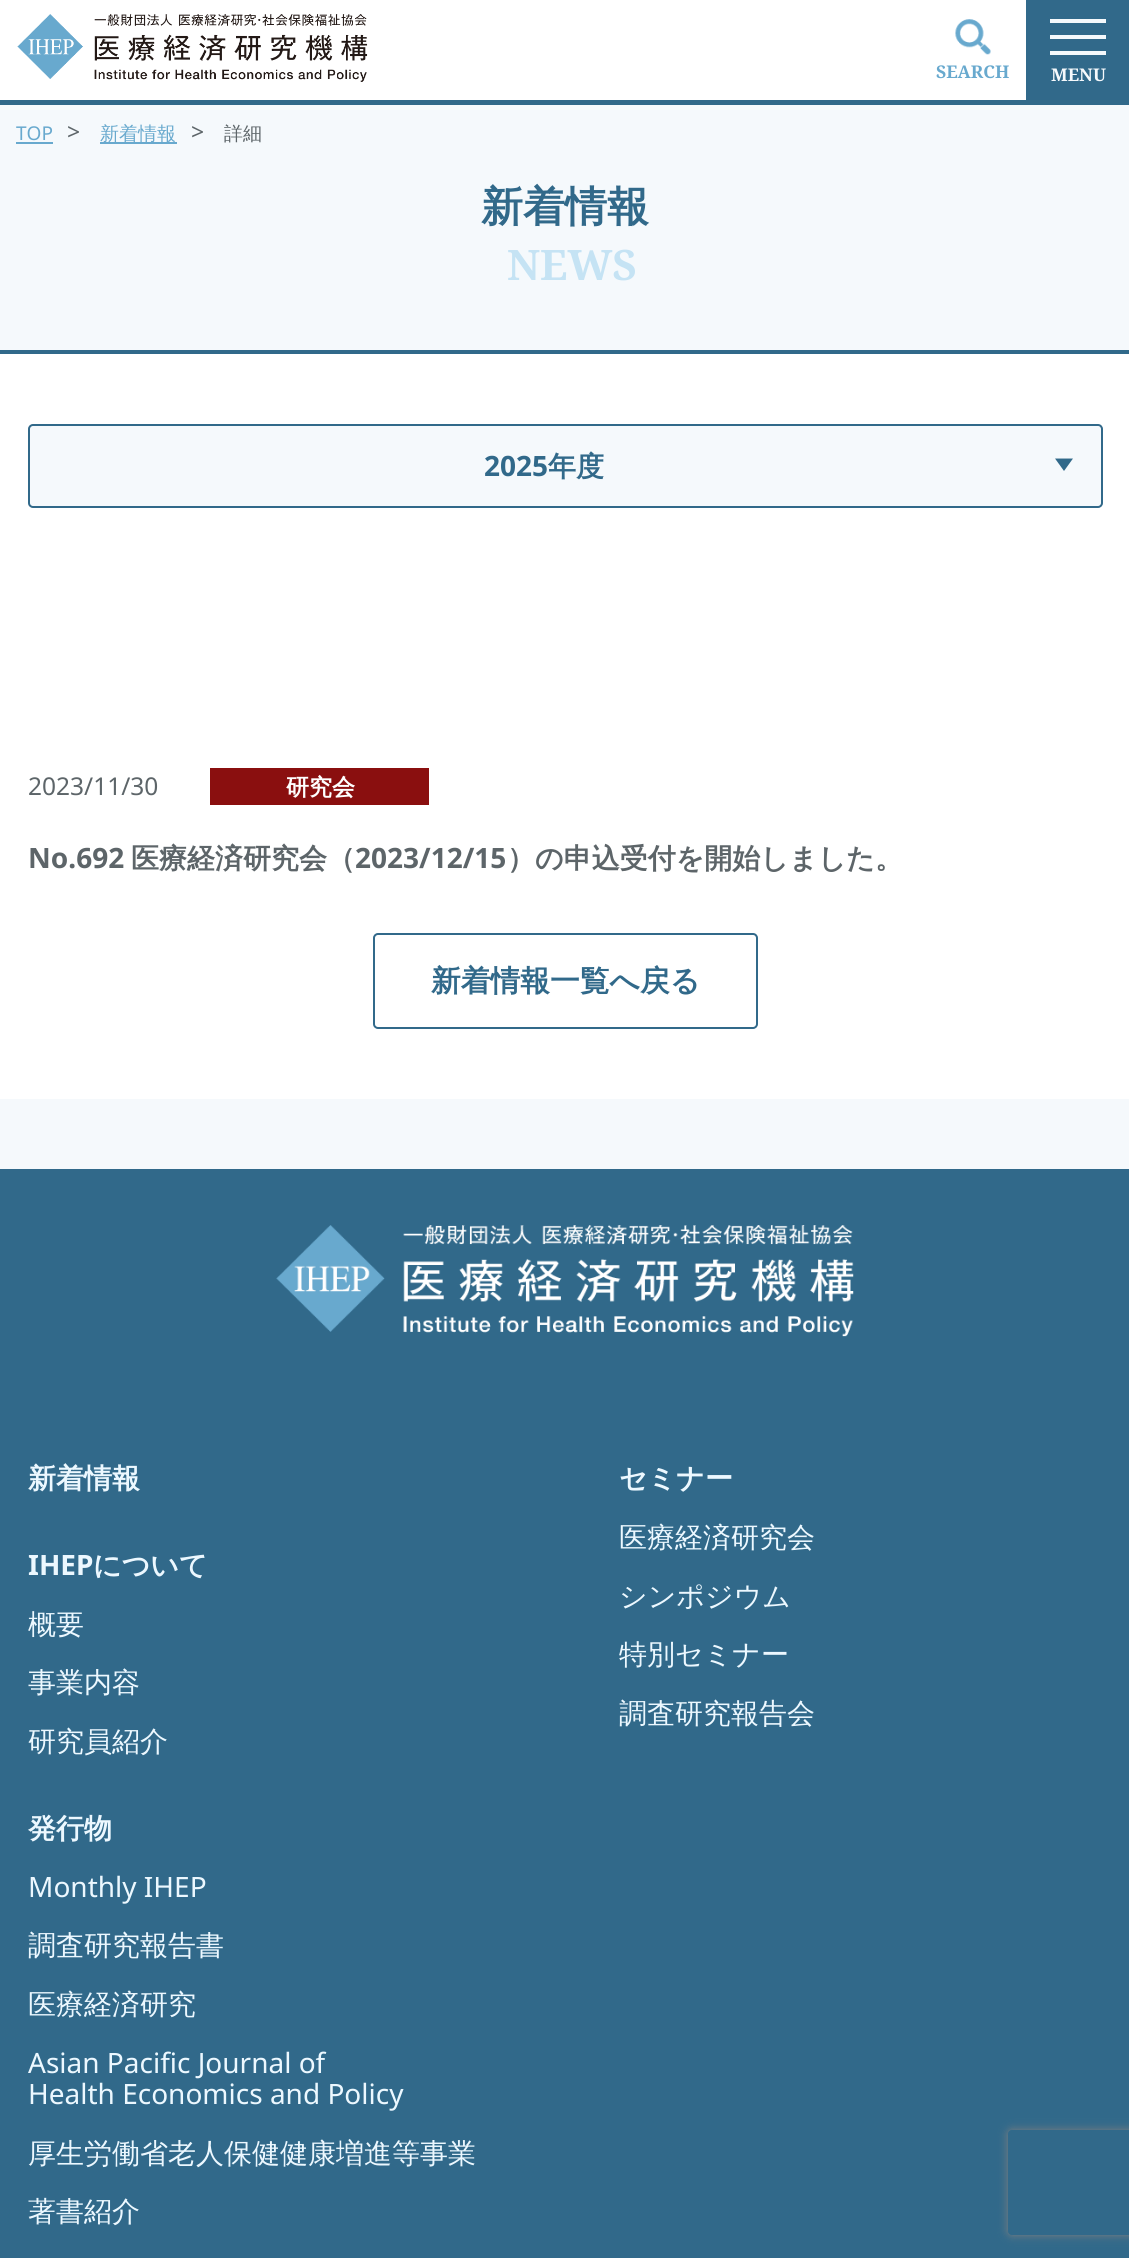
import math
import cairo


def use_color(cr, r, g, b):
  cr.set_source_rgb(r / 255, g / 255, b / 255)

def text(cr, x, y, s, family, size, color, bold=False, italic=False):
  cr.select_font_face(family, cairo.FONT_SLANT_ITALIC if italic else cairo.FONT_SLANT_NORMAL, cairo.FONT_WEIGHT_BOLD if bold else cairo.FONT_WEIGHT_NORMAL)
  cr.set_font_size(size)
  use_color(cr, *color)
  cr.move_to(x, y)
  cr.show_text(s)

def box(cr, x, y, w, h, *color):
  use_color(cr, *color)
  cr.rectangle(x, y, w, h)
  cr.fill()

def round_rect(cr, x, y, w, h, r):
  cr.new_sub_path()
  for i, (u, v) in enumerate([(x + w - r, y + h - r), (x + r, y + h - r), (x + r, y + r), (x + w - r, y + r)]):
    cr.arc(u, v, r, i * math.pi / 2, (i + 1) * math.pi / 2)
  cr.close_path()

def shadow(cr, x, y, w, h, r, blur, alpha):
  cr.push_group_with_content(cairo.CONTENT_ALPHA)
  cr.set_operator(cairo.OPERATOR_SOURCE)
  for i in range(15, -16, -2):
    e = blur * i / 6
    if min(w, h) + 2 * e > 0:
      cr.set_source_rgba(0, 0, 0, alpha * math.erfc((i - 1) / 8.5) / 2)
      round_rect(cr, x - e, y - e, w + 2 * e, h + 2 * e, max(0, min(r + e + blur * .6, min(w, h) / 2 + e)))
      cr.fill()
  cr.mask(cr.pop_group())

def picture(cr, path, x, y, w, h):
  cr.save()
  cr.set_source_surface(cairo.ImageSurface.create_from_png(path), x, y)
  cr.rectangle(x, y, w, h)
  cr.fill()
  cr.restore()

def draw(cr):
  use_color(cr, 255, 255, 255)
  cr.paint()
  box(cr, 0, 100, 1129, 5, 49, 105, 138)
  picture(cr, "img_01.png", 17, 14, 351, 68)
  picture(cr, "img_02.png", 955, 19, 36, 36)
  box(cr, 1026, 0, 103, 100, 49, 105, 138)
  box(cr, 1050, 19, 56, 4, 245, 249, 252)
  box(cr, 1050, 35, 56, 4, 245, 249, 252)
  box(cr, 1050, 51, 56, 4, 245, 249, 252)
  box(cr, 0, 105, 1129, 245, 245, 249, 252)
  box(cr, 0, 350, 1129, 4, 49, 105, 138)
  box(cr, 16, 142, 37, 2, 104, 169, 206)
  box(cr, 100, 142, 77, 2, 104, 169, 206)
  box(cr, 0, 1099, 1129, 70, 245, 249, 252)
  round_rect(cr, 29, 425, 1073, 82, 4)
  cr.fill_preserve()
  use_color(cr, 49, 105, 138)
  cr.stroke()
  cr.new_path()
  cr.move_to(1055, 458.5)
  cr.line_to(1073, 458.5)
  cr.line_to(1064, 471)
  cr.close_path()
  cr.fill()
  box(cr, 210, 768, 219, 37, 138, 15, 15)
  round_rect(cr, 374, 934, 383, 94, 4)
  use_color(cr, 49, 105, 138)
  cr.stroke()
  box(cr, 0, 1169, 1129, 1089, 49, 105, 138)
  picture(cr, "img_03.png", 276, 1225, 578, 112)
  cr.save()
  cr.set_fill_rule(cairo.FILL_RULE_EVEN_ODD)
  cr.new_path()
  cr.move_to(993, 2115)
  cr.line_to(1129, 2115)
  cr.line_to(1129, 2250)
  cr.line_to(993, 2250)
  cr.close_path()
  cr.move_to(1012, 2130)
  cr.line_to(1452, 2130)
  cr.curve_to(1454, 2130, 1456, 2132, 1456, 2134)
  cr.line_to(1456, 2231)
  cr.curve_to(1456, 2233, 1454, 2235, 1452, 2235)
  cr.line_to(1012, 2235)
  cr.curve_to(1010, 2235, 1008, 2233, 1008, 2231)
  cr.line_to(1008, 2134)
  cr.curve_to(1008, 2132, 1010, 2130, 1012, 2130)
  cr.close_path()
  cr.clip()
  use_color(cr, 128, 128, 128)
  shadow(cr, 1008, 2130, 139, 105, 4, 4.5, 1)
  cr.restore()
  text(cr, 936, 78, "SEARCH", "Noto Serif", 17.5, (104, 169, 206), bold=True)
  text(cr, 1051, 81, "MENU", "Noto Serif", 17.5, (245, 249, 252), bold=True)
  text(cr, 16, 140, "TOP", "Noto Sans", 19, (104, 169, 206))
  text(cr, 67, 140, ">", "Noto Sans", 23, (93, 101, 105))
  text(cr, 100, 140, "新着情報", "WenQuanYi Zen Hei Medium", 19, (104, 169, 206))
  text(cr, 191, 140, ">", "Noto Sans", 23, (93, 101, 105))
  text(cr, 224, 140, "詳細", "WenQuanYi Zen Hei Medium", 19, (93, 101, 105))
  text(cr, 481, 221, "新着情報", "WenQuanYi Zen Hei", 42, (49, 105, 138), bold=True)
  text(cr, 507, 280, "NEWS", "Noto Serif", 42, (197, 227, 244), bold=True)
  text(cr, 484, 476, "2025", "Noto Sans", 28, (49, 105, 138), bold=True)
  text(cr, 548, 476, "年度", "WenQuanYi Zen Hei", 28, (49, 105, 138), bold=True)
  text(cr, 28, 795, "2023/11/30", "Noto Sans", 24.5, (93, 101, 105))
  text(cr, 286, 795, "研究会", "WenQuanYi Zen Hei", 23, (255, 255, 255), bold=True)
  text(cr, 28, 868, "No.692", "Noto Sans", 28, (93, 101, 105), bold=True)
  text(cr, 131, 868, "医療経済研究会（", "WenQuanYi Zen Hei", 28, (93, 101, 105), bold=True)
  text(cr, 355, 868, "2023/12/15", "Noto Sans", 28, (93, 101, 105), bold=True)
  text(cr, 507, 868, "）の申込受付を開始しました。", "WenQuanYi Zen Hei", 28, (93, 101, 105), bold=True)
  text(cr, 431, 991, "新着情報一覧へ戻る", "WenQuanYi Zen Hei", 29.75, (49, 105, 138), bold=True)
  text(cr, 28, 1488, "新着情報", "WenQuanYi Zen Hei", 28, (236, 248, 255), bold=True)
  text(cr, 28, 1575, "IHEP", "Noto Sans", 28, (236, 248, 255), bold=True)
  text(cr, 93, 1575, "について", "WenQuanYi Zen Hei", 28, (236, 248, 255), bold=True)
  text(cr, 28, 1634, "概要", "WenQuanYi Zen Hei Medium", 28, (236, 248, 255))
  text(cr, 28, 1692, "事業内容", "WenQuanYi Zen Hei Medium", 28, (236, 248, 255))
  text(cr, 28, 1751, "研究員紹介", "WenQuanYi Zen Hei Medium", 28, (236, 248, 255))
  text(cr, 619, 1488, "セミナー", "WenQuanYi Zen Hei", 28, (236, 248, 255), bold=True)
  text(cr, 619, 1547, "医療経済研究会", "WenQuanYi Zen Hei Medium", 28, (236, 248, 255))
  text(cr, 619, 1606, "シンポジウム", "WenQuanYi Zen Hei Medium", 28, (236, 248, 255))
  text(cr, 619, 1664, "特別セミナー", "WenQuanYi Zen Hei Medium", 28, (236, 248, 255))
  text(cr, 619, 1723, "調査研究報告会", "WenQuanYi Zen Hei Medium", 28, (236, 248, 255))
  text(cr, 28, 1838, "発行物", "WenQuanYi Zen Hei", 28, (236, 248, 255), bold=True)
  text(cr, 28, 1897, "Monthly IHEP", "Noto Sans", 28, (236, 248, 255))
  text(cr, 28, 1955, "調査研究報告書", "WenQuanYi Zen Hei Medium", 28, (236, 248, 255))
  text(cr, 28, 2014, "医療経済研究", "WenQuanYi Zen Hei Medium", 28, (236, 248, 255))
  text(cr, 28, 2073, "Asian Pacific Journal of", "Noto Sans", 28, (236, 248, 255))
  text(cr, 28, 2104, "Health Economics and Policy", "Noto Sans", 28, (236, 248, 255))
  text(cr, 28, 2163, "厚生労働省老人保健健康増進等事業", "WenQuanYi Zen Hei Medium", 28, (236, 248, 255))
  text(cr, 28, 2221, "著書紹介", "WenQuanYi Zen Hei Medium", 28, (236, 248, 255))


surface = cairo.ImageSurface(cairo.FORMAT_RGB24, 1129, 2258)
cr = cairo.Context(surface)
options = cairo.FontOptions()
options.set_hint_metrics(cairo.HINT_METRICS_OFF)
options.set_hint_style(cairo.HINT_STYLE_NONE)
cr.set_font_options(options)
cr.set_miter_limit(4)
draw(cr)
surface.write_to_png("out.png")
